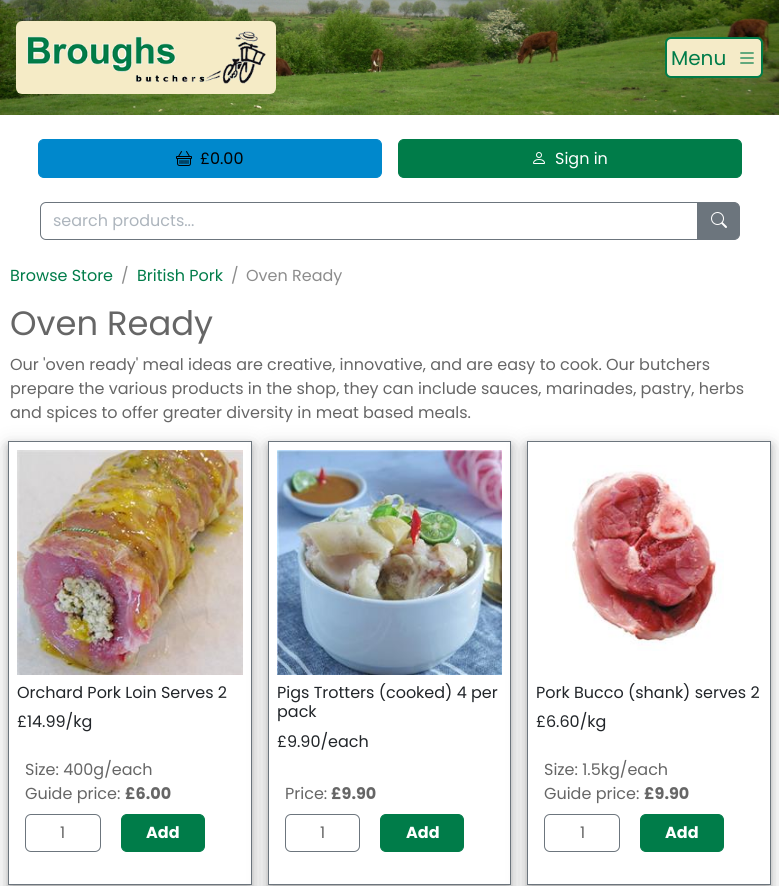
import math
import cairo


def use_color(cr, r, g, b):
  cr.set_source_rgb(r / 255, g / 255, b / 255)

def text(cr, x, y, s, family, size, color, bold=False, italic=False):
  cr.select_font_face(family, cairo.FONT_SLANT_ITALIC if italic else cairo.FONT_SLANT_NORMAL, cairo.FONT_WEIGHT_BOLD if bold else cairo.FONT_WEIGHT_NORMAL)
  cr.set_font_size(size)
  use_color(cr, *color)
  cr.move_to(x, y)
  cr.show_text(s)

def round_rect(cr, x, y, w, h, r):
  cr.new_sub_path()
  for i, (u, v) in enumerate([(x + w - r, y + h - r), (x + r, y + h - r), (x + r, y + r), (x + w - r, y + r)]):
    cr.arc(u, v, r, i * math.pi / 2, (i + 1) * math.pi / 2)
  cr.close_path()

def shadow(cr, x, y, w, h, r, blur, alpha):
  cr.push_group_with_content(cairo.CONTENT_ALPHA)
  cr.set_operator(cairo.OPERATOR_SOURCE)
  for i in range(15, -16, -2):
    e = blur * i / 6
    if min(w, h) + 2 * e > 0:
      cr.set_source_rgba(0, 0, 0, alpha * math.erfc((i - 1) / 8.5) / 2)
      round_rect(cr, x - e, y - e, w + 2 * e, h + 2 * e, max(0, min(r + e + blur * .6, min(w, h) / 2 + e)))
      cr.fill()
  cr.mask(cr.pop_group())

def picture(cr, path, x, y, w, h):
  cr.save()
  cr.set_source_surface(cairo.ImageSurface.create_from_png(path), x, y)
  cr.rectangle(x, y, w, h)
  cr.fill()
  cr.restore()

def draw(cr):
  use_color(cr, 255, 255, 255)
  cr.paint()
  picture(cr, "img_01.png", 0, 0, 779, 115)
  picture(cr, "img_02.png", 16, 21, 260, 73)
  use_color(cr, 245, 235, 200)
  round_rect(cr, 666, 38, 96, 39, 5)
  cr.fill_preserve()
  use_color(cr, 0, 124, 73)
  cr.stroke()
  picture(cr, "img_03.png", 740, 52, 14, 12)
  use_color(cr, 0, 136, 204)
  round_rect(cr, 38.5, 139.5, 343, 38, 5.5)
  cr.fill_preserve()
  cr.set_line_width(1)
  cr.stroke()
  picture(cr, "img_04.png", 176, 151, 16, 15)
  use_color(cr, 0, 124, 73)
  round_rect(cr, 398.5, 139.5, 343, 38, 5.5)
  cr.fill_preserve()
  cr.stroke()
  picture(cr, "img_05.png", 533, 152, 12, 12)
  cr.new_path()
  cr.move_to(46, 202.5)
  cr.line_to(697.5, 202.5)
  cr.line_to(697.5, 239.5)
  cr.line_to(46, 239.5)
  cr.curve_to(43, 239.5, 40.5, 237, 40.5, 234)
  cr.line_to(40.5, 208)
  cr.curve_to(40.5, 205, 43, 202.5, 46, 202.5)
  cr.close_path()
  use_color(cr, 108, 117, 125)
  cr.stroke()
  cr.new_path()
  cr.move_to(698.5, 202.5)
  cr.line_to(734, 202.5)
  cr.curve_to(737, 202.5, 739.5, 205, 739.5, 208)
  cr.line_to(739.5, 234)
  cr.curve_to(739.5, 237, 737, 239.5, 734, 239.5)
  cr.line_to(698.5, 239.5)
  cr.close_path()
  cr.fill_preserve()
  cr.stroke()
  picture(cr, "img_06.png", 711, 212, 16, 16)
  cr.save()
  cr.set_fill_rule(cairo.FILL_RULE_EVEN_ODD)
  cr.new_path()
  cr.move_to(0, 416)
  cr.line_to(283, 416)
  cr.line_to(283, 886)
  cr.line_to(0, 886)
  cr.close_path()
  cr.move_to(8, 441)
  cr.line_to(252, 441)
  cr.line_to(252, 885)
  cr.line_to(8, 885)
  cr.close_path()
  cr.clip()
  use_color(cr, 0, 0, 0)
  shadow(cr, 8, 447, 244, 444, 0, 10, 0.19)
  cr.restore()
  cr.save()
  cr.set_fill_rule(cairo.FILL_RULE_EVEN_ODD)
  cr.new_path()
  cr.move_to(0, 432)
  cr.line_to(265, 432)
  cr.line_to(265, 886)
  cr.line_to(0, 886)
  cr.close_path()
  cr.move_to(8, 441)
  cr.line_to(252, 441)
  cr.line_to(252, 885)
  cr.line_to(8, 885)
  cr.close_path()
  cr.clip()
  use_color(cr, 0, 0, 0)
  shadow(cr, 8, 445, 244, 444, 0, 4, 0.2)
  cr.restore()
  cr.rectangle(8.5, 441.5, 243, 443)
  cr.stroke()
  picture(cr, "img_07.png", 17, 450, 226, 225)
  round_rect(cr, 25.5, 814.5, 75, 37, 5.5)
  cr.stroke()
  use_color(cr, 0, 124, 73)
  round_rect(cr, 121.5, 814.5, 83, 37, 5.5)
  cr.fill_preserve()
  cr.stroke()
  use_color(cr, 0, 0, 0)
  shadow(cr, 268, 447, 243, 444, 0, 10, 0.19)
  shadow(cr, 268, 445, 243, 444, 0, 4, 0.2)
  use_color(cr, 255, 255, 255)
  cr.rectangle(268.5, 441.5, 242, 443)
  cr.fill_preserve()
  use_color(cr, 108, 117, 125)
  cr.stroke()
  picture(cr, "img_08.png", 277, 450, 225, 225)
  round_rect(cr, 285.5, 814.5, 74, 37, 5.5)
  cr.stroke()
  use_color(cr, 0, 124, 73)
  round_rect(cr, 380.5, 814.5, 83, 37, 5.5)
  cr.fill_preserve()
  cr.stroke()
  use_color(cr, 0, 0, 0)
  shadow(cr, 527, 447, 244, 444, 0, 10, 0.19)
  shadow(cr, 527, 445, 244, 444, 0, 4, 0.2)
  use_color(cr, 255, 255, 255)
  cr.rectangle(527.5, 441.5, 243, 443)
  cr.fill_preserve()
  use_color(cr, 108, 117, 125)
  cr.stroke()
  picture(cr, "img_09.png", 565, 465, 159, 186)
  round_rect(cr, 544.5, 814.5, 75, 37, 5.5)
  cr.stroke()
  use_color(cr, 0, 124, 73)
  round_rect(cr, 640.5, 814.5, 83, 37, 5.5)
  cr.fill_preserve()
  cr.stroke()
  text(cr, 671, 65, "Menu", "Poppins", 20, (0, 124, 73))
  text(cr, 200, 164, "£0.00", "Poppins", 16, (0, 0, 0))
  text(cr, 555, 164, "Sign in", "Poppins", 16, (255, 255, 255))
  text(cr, 53, 226, "search products...", "Poppins", 16, (173, 181, 189))
  text(cr, 10, 281, "Browse Store", "Poppins", 16, (0, 124, 73))
  text(cr, 121, 281, "/", "Poppins", 16, (140, 140, 140))
  text(cr, 137, 281, "British Pork", "Poppins", 16, (0, 124, 73))
  text(cr, 231, 281, "/", "Poppins", 16, (140, 140, 140))
  text(cr, 246, 281, "Oven Ready", "Poppins", 16, (140, 140, 140))
  text(cr, 10, 335, "Oven Ready", "Poppins", 33.75, (102, 102, 102))
  text(cr, 10, 370, "Our 'oven ready' meal ideas are creative, innovative, and are easy to cook. Our butchers", "Poppins", 16, (102, 102, 102))
  text(cr, 10, 394, "prepare the various products in the shop, they can include sauces, marinades, pastry, herbs", "Poppins", 16, (102, 102, 102))
  text(cr, 10, 418, "and spices to offer greater diversity in meat based meals.", "Poppins", 16, (102, 102, 102))
  text(cr, 17, 698, "Orchard Pork Loin Serves 2", "Poppins", 16, (33, 37, 41))
  text(cr, 17, 727, "£14.99/kg", "Poppins", 16, (33, 37, 41))
  text(cr, 25, 775, "Size: 400g/each", "Poppins", 16, (102, 102, 102))
  text(cr, 25, 799, "Guide price:", "Poppins", 16, (102, 102, 102))
  text(cr, 125, 799, "£6.00", "Poppins", 16, (102, 102, 102), bold=True)
  text(cr, 60, 838, "1", "Poppins", 16, (102, 102, 102))
  text(cr, 146, 838, "Add", "Poppins", 16, (255, 255, 255), bold=True)
  text(cr, 277, 698, "Pigs Trotters (cooked) 4 per", "Poppins", 16, (33, 37, 41))
  text(cr, 277, 717, "pack", "Poppins", 16, (33, 37, 41))
  text(cr, 277, 747, "£9.90/each", "Poppins", 16, (33, 37, 41))
  text(cr, 285, 799, "Price:", "Poppins", 16, (102, 102, 102))
  text(cr, 331, 799, "£9.90", "Poppins", 16, (102, 102, 102), bold=True)
  text(cr, 320, 838, "1", "Poppins", 16, (102, 102, 102))
  text(cr, 406, 838, "Add", "Poppins", 16, (255, 255, 255), bold=True)
  text(cr, 536, 698, "Pork Bucco (shank) serves 2", "Poppins", 16, (33, 37, 41))
  text(cr, 536, 727, "£6.60/kg", "Poppins", 16, (33, 37, 41))
  text(cr, 544, 775, "Size: 1.5kg/each", "Poppins", 16, (102, 102, 102))
  text(cr, 544, 799, "Guide price:", "Poppins", 16, (102, 102, 102))
  text(cr, 644, 799, "£9.90", "Poppins", 16, (102, 102, 102), bold=True)
  text(cr, 580, 838, "1", "Poppins", 16, (102, 102, 102))
  text(cr, 665, 838, "Add", "Poppins", 16, (255, 255, 255), bold=True)


surface = cairo.ImageSurface(cairo.FORMAT_RGB24, 779, 886)
cr = cairo.Context(surface)
options = cairo.FontOptions()
options.set_hint_metrics(cairo.HINT_METRICS_OFF)
options.set_hint_style(cairo.HINT_STYLE_NONE)
cr.set_font_options(options)
cr.set_miter_limit(4)
draw(cr)
surface.write_to_png("out.png")
